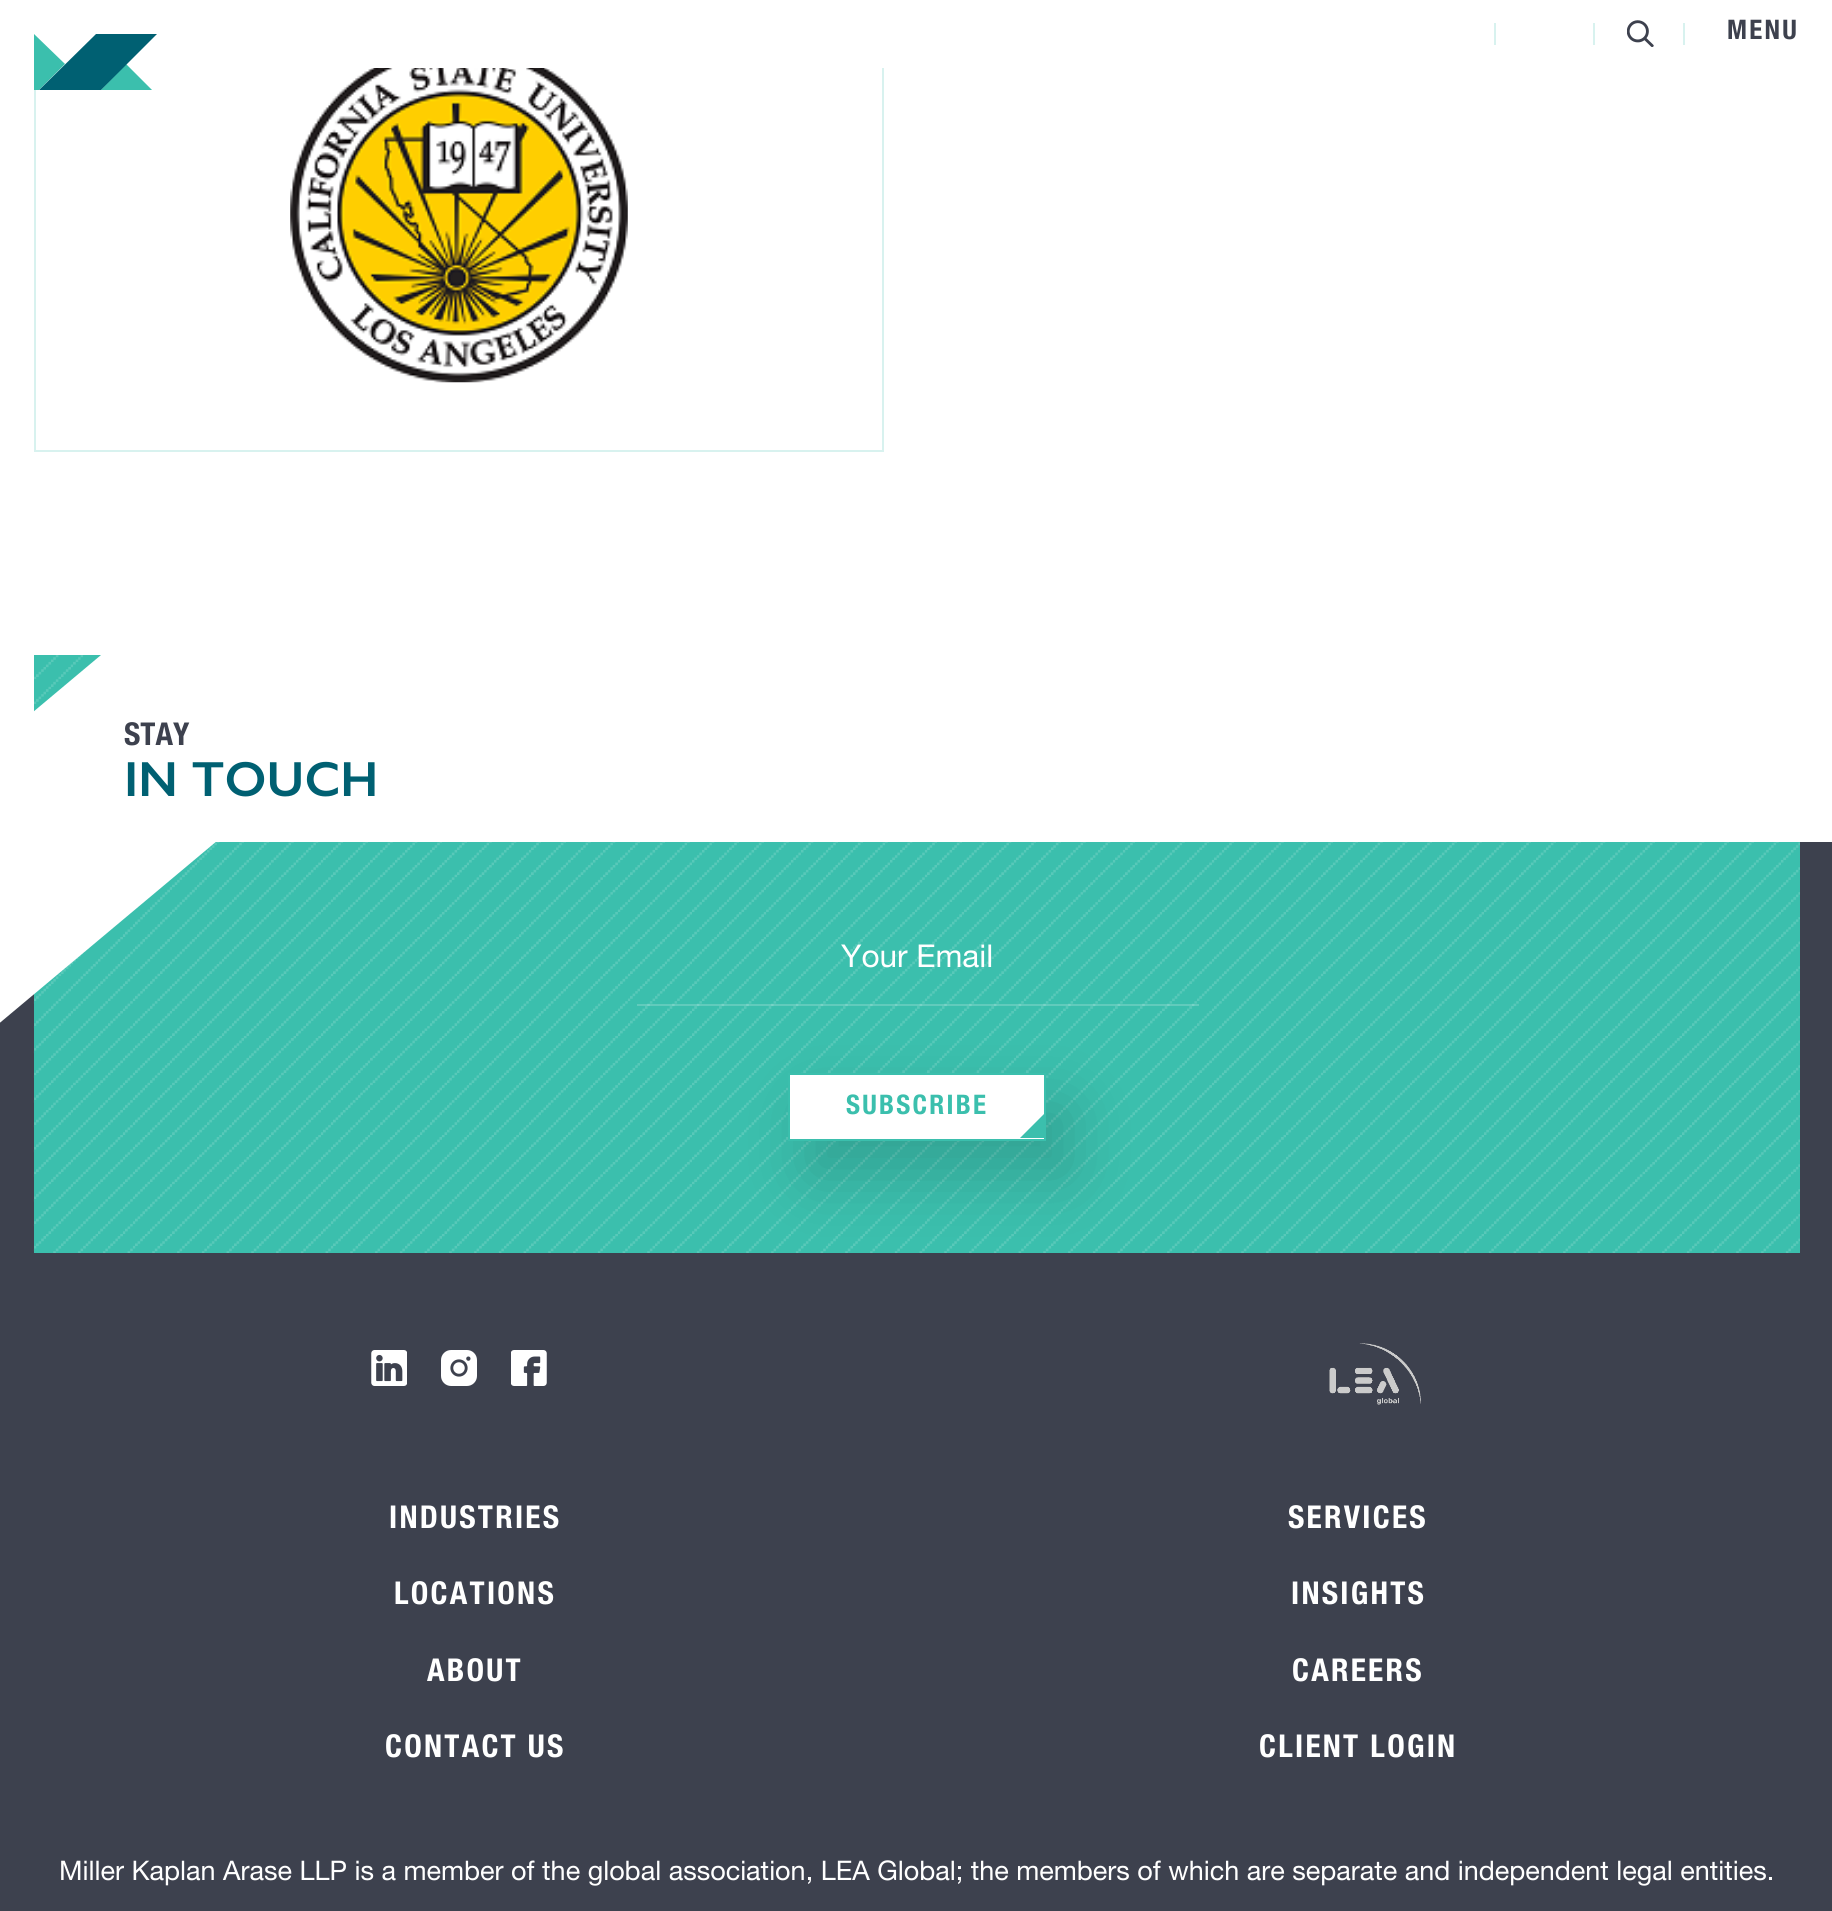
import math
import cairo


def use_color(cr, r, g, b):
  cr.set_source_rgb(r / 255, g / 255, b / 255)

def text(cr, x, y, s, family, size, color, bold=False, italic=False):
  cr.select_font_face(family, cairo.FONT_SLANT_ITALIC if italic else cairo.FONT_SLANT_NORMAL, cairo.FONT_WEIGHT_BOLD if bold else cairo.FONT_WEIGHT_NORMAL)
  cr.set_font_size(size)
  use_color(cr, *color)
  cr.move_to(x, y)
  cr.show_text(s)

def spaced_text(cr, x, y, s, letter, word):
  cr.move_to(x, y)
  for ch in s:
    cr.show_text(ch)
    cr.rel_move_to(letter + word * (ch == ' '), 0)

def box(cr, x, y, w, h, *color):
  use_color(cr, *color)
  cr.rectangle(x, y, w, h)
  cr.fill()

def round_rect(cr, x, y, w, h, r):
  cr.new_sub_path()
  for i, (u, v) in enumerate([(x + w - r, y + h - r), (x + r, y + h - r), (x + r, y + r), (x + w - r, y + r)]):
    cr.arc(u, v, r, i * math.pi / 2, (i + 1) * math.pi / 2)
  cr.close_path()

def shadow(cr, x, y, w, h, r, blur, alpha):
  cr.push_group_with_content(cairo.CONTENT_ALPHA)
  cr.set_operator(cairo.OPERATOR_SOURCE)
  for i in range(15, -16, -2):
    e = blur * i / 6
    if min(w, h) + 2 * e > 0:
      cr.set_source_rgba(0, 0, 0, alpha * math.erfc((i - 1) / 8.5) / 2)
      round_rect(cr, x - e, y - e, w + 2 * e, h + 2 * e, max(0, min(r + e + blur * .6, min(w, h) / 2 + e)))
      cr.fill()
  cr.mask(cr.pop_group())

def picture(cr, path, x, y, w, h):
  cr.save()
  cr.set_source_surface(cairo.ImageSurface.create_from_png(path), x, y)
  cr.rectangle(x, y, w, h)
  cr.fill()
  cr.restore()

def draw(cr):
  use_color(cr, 255, 255, 255)
  cr.paint()
  cr.rectangle(35, -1, 848, 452)
  use_color(cr, 216, 242, 239)
  cr.stroke()
  picture(cr, "img_01.png", 290, 68, 338, 315)
  box(cr, 34, 0, 850, 68, 255, 255, 255)
  box(cr, 1494, 23, 2, 22, 216, 242, 239)
  box(cr, 1593, 23, 2, 22, 216, 242, 239)
  picture(cr, "img_02.png", 1627, 20, 27, 27)
  box(cr, 1683, 23, 2, 22, 216, 242, 239)
  cr.save()
  cr.rectangle(34, 34, 124, 56)
  cr.clip()
  use_color(cr, 59, 191, 173)
  cr.new_path()
  cr.move_to(34, 34)
  cr.line_to(65, 64)
  cr.line_to(34, 95)
  cr.close_path()
  cr.fill()
  cr.new_path()
  cr.move_to(96, 95)
  cr.line_to(126, 64)
  cr.line_to(157, 95)
  cr.close_path()
  cr.fill()
  use_color(cr, 0, 96, 114)
  cr.new_path()
  cr.move_to(96, 34)
  cr.line_to(157, 34)
  cr.line_to(96, 95)
  cr.line_to(34, 95)
  cr.close_path()
  cr.fill()
  cr.restore()
  box(cr, 0, 842, 1832, 1069, 61, 65, 78)
  box(cr, 34, 655, 1766, 598, 59, 191, 173)
  picture(cr, "img_03.png", 33, 655, 1767, 598)
  use_color(cr, 255, 255, 255)
  cr.new_path()
  cr.move_to(101, 655)
  cr.line_to(439, 655)
  cr.line_to(-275, 1253)
  cr.line_to(-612, 1253)
  cr.close_path()
  cr.fill()
  box(cr, 215, 655, 1585, 187, 255, 255, 255)
  cr.set_source_rgba(0.98, 0.98, 0.98, 0.2)
  cr.rectangle(637, 1004, 562, 2)
  cr.fill()
  use_color(cr, 0, 0, 0)
  shadow(cr, 810, 1107, 259, 68, 0, 34, 0.15)
  use_color(cr, 255, 255, 255)
  cr.rectangle(789, 1074, 256, 66)
  cr.fill_preserve()
  use_color(cr, 59, 191, 173)
  cr.stroke()
  cr.save()
  cr.rectangle(790, 1076, 254, 63)
  cr.clip()
  cr.new_path()
  cr.move_to(1083, 1075)
  cr.line_to(1107, 1075)
  cr.line_to(1044, 1138)
  cr.line_to(1020, 1138)
  cr.close_path()
  cr.fill()
  cr.restore()
  picture(cr, "img_04.png", 371, 1350, 36, 36)
  picture(cr, "img_05.png", 441, 1350, 36, 36)
  picture(cr, "img_06.png", 511, 1350, 36, 36)
  picture(cr, "img_07.png", 1329, 1343, 92, 62)
  cr.select_font_face("Helvetica Neue", cairo.FONT_SLANT_NORMAL, cairo.FONT_WEIGHT_BOLD)
  cr.set_font_size(27)
  use_color(cr, 61, 65, 78)
  spaced_text(cr, 1727, 39, "MENU", 2.25, 0)
  text(cr, 124, 745, "STAY", "Helvetica Neue", 31.5, (61, 65, 78), bold=True)
  text(cr, 124, 796, "IN TOUCH", "Gill Sans SemiBold", 49.5, (0, 96, 114))
  text(cr, 841, 967, "Your Email", "Helvetica Neue", 31.5, (255, 255, 255))
  cr.select_font_face("Helvetica Neue", cairo.FONT_SLANT_NORMAL, cairo.FONT_WEIGHT_BOLD)
  cr.set_font_size(27)
  use_color(cr, 59, 191, 173)
  spaced_text(cr, 846, 1114, "SUBSCRIBE", 2.25, 0)
  cr.set_font_size(31.5)
  use_color(cr, 255, 255, 255)
  spaced_text(cr, 389, 1528, "INDUSTRIES", 2.25, 0)
  spaced_text(cr, 1288, 1528, "SERVICES", 2.25, 0)
  spaced_text(cr, 394, 1604, "LOCATIONS", 2.25, 0)
  spaced_text(cr, 1291, 1604, "INSIGHTS", 2.25, 0)
  spaced_text(cr, 427, 1681, "ABOUT", 2.25, 0)
  spaced_text(cr, 1292, 1681, "CAREERS", 2.25, 0)
  spaced_text(cr, 385, 1757, "CONTACT US", 2.25, 0)
  spaced_text(cr, 1259, 1757, "CLIENT LOGIN", 2.25, 0)
  text(cr, 59, 1880, "Miller Kaplan Arase LLP is a member of the global association, LEA Global; the members of which are separate and independent legal entities.", "Helvetica Neue", 27, (255, 255, 255))


surface = cairo.ImageSurface(cairo.FORMAT_RGB24, 1832, 1911)
cr = cairo.Context(surface)
options = cairo.FontOptions()
options.set_hint_metrics(cairo.HINT_METRICS_OFF)
options.set_hint_style(cairo.HINT_STYLE_NONE)
cr.set_font_options(options)
cr.set_miter_limit(4)
draw(cr)
surface.write_to_png("out.png")
